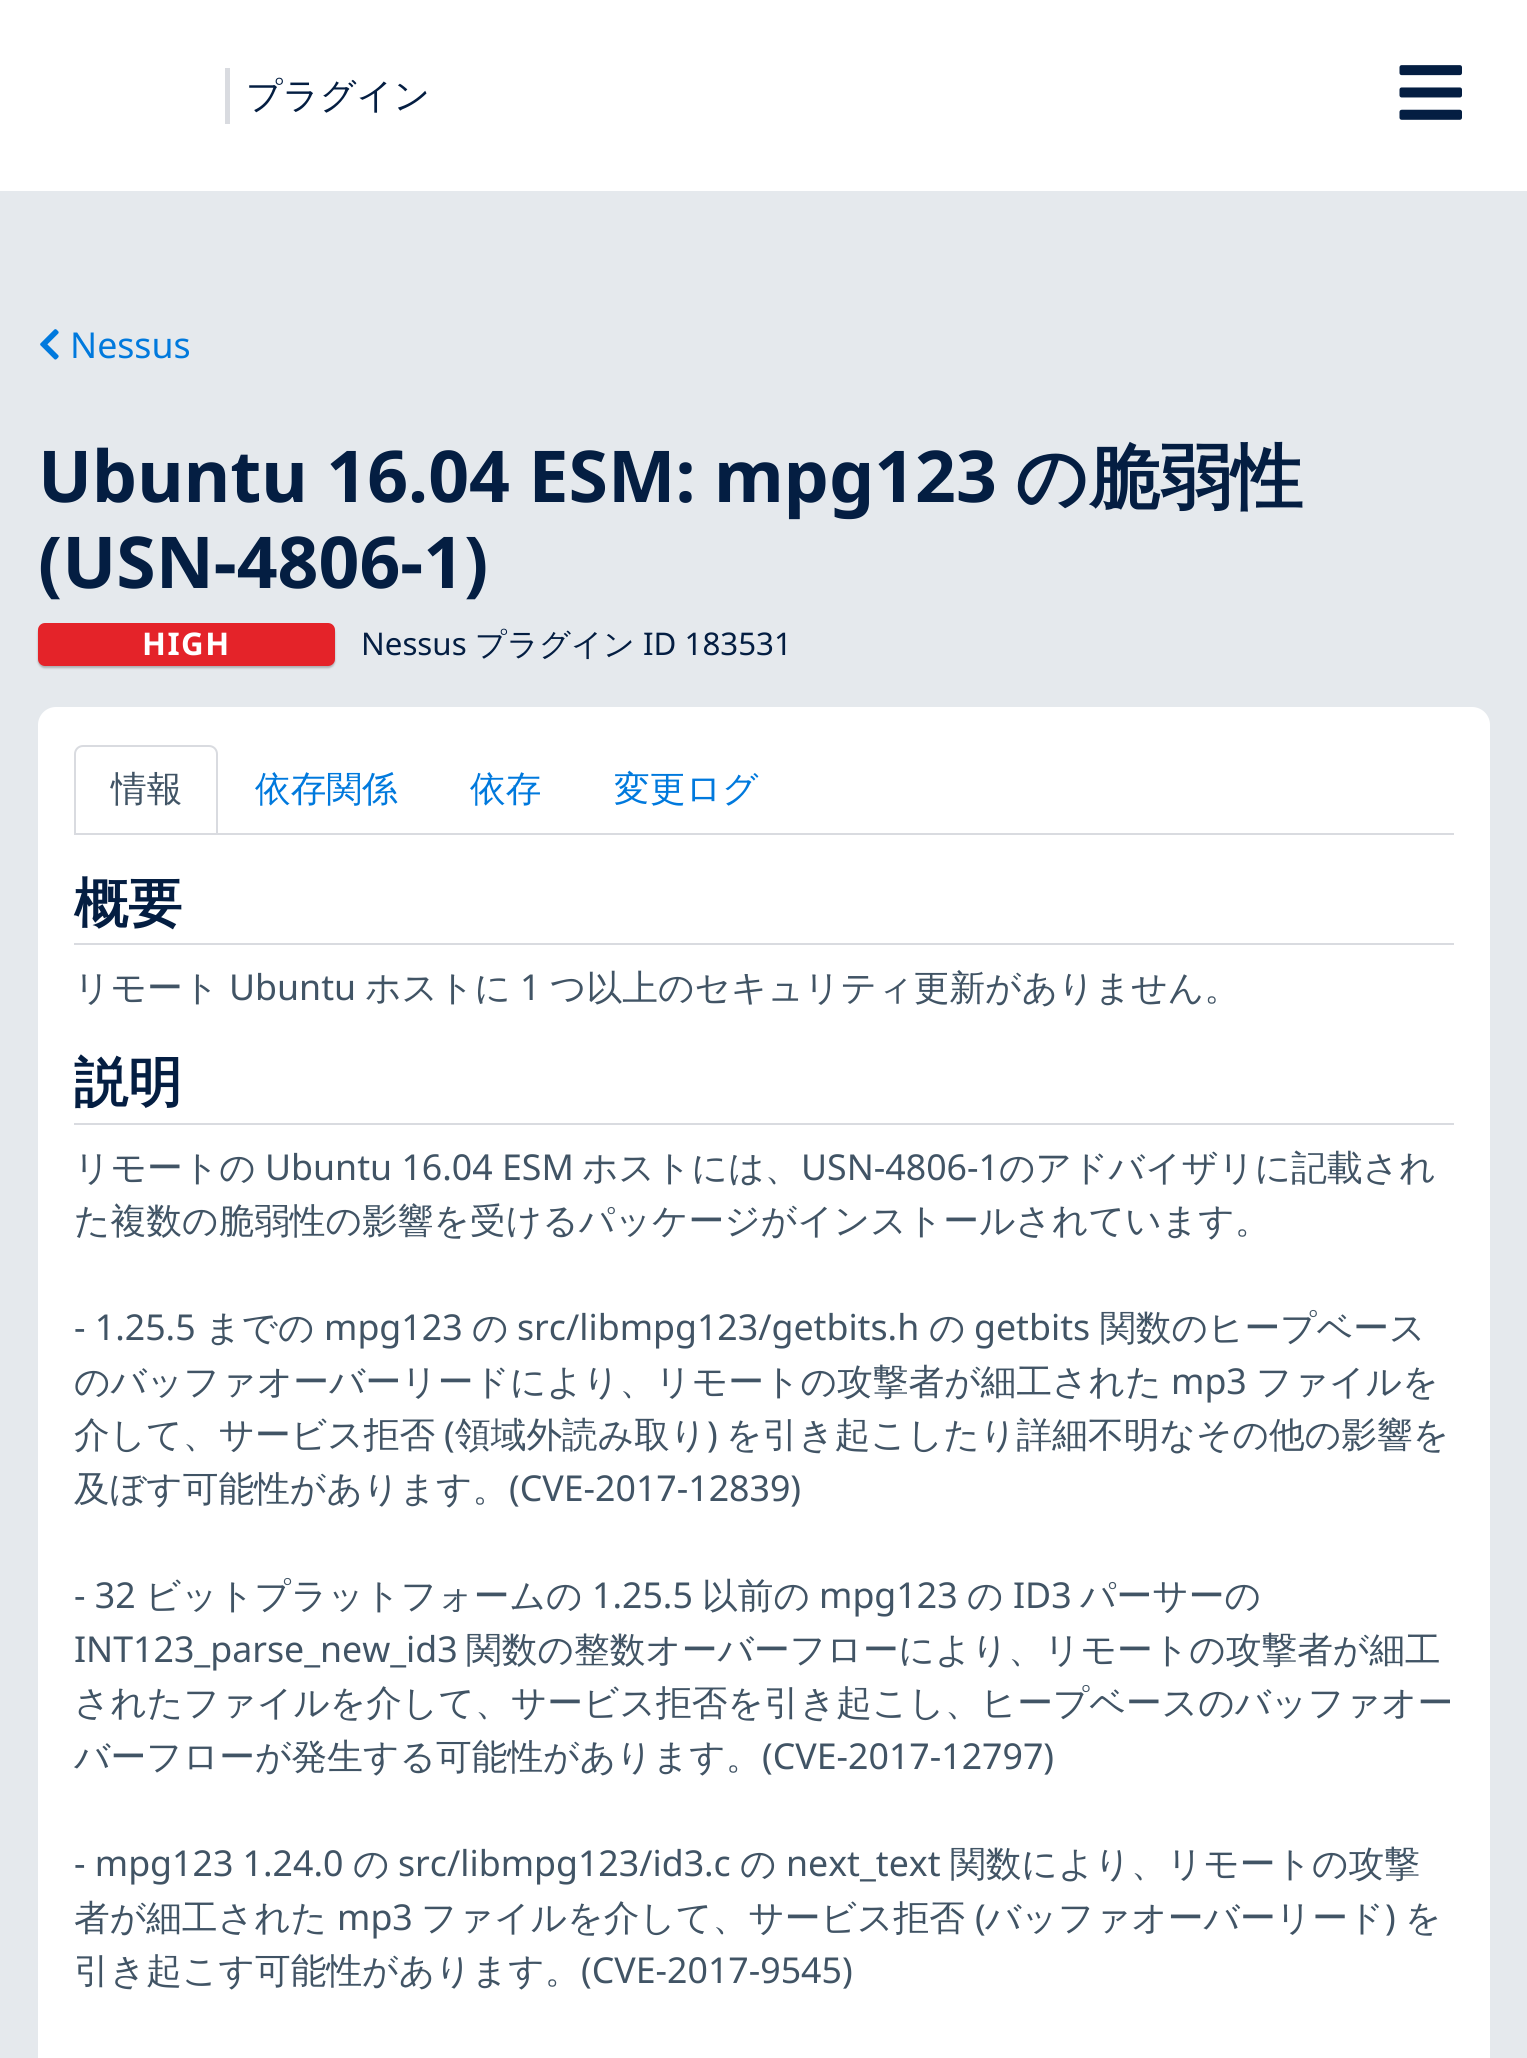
import math
import cairo


def use_color(cr, r, g, b):
  cr.set_source_rgb(r / 255, g / 255, b / 255)

def text(cr, x, y, s, family, size, color, bold=False, italic=False):
  cr.select_font_face(family, cairo.FONT_SLANT_ITALIC if italic else cairo.FONT_SLANT_NORMAL, cairo.FONT_WEIGHT_BOLD if bold else cairo.FONT_WEIGHT_NORMAL)
  cr.set_font_size(size)
  use_color(cr, *color)
  cr.move_to(x, y)
  cr.show_text(s)

def spaced_text(cr, x, y, s, letter, word):
  cr.move_to(x, y)
  for ch in s:
    cr.show_text(ch)
    cr.rel_move_to(letter + word * (ch == ' '), 0)

def box(cr, x, y, w, h, *color):
  use_color(cr, *color)
  cr.rectangle(x, y, w, h)
  cr.fill()

def round_rect(cr, x, y, w, h, r):
  cr.new_sub_path()
  for i, (u, v) in enumerate([(x + w - r, y + h - r), (x + r, y + h - r), (x + r, y + r), (x + w - r, y + r)]):
    cr.arc(u, v, r, i * math.pi / 2, (i + 1) * math.pi / 2)
  cr.close_path()

def shadow(cr, x, y, w, h, r, blur, alpha):
  cr.push_group_with_content(cairo.CONTENT_ALPHA)
  cr.set_operator(cairo.OPERATOR_SOURCE)
  for i in range(15, -16, -2):
    e = blur * i / 6
    if min(w, h) + 2 * e > 0:
      cr.set_source_rgba(0, 0, 0, alpha * math.erfc((i - 1) / 8.5) / 2)
      round_rect(cr, x - e, y - e, w + 2 * e, h + 2 * e, max(0, min(r + e + blur * .6, min(w, h) / 2 + e)))
      cr.fill()
  cr.mask(cr.pop_group())

def picture(cr, path, x, y, w, h):
  cr.save()
  cr.set_source_surface(cairo.ImageSurface.create_from_png(path), x, y)
  cr.rectangle(x, y, w, h)
  cr.fill()
  cr.restore()

def draw(cr):
  use_color(cr, 255, 255, 255)
  cr.paint()
  box(cr, 225, 68, 5, 56, 217, 219, 224)
  picture(cr, "img_01.png", 1399, 65, 63, 55)
  box(cr, 0, 191, 1527, 1867, 229, 233, 237)
  picture(cr, "img_02.png", 40, 329, 19, 31)
  use_color(cr, 0, 0, 0)
  shadow(cr, 38, 626, 297, 42, 7, 1, 0.25)
  use_color(cr, 228, 35, 41)
  round_rect(cr, 38, 623, 297, 43, 7)
  cr.fill()
  use_color(cr, 255, 255, 255)
  round_rect(cr, 39, 708, 1450, 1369, 17)
  cr.fill_preserve()
  cr.stroke()
  box(cr, 218, 833, 1236, 2, 217, 219, 224)
  cr.new_path()
  cr.move_to(83, 746)
  cr.line_to(209, 746)
  cr.curve_to(213.5, 746, 217, 749.5, 217, 754)
  cr.line_to(217, 834)
  cr.line_to(75, 834)
  cr.line_to(75, 754)
  cr.curve_to(75, 749.5, 78.5, 746, 83, 746)
  cr.close_path()
  cr.stroke()
  box(cr, 74, 943, 1380, 2, 217, 219, 224)
  box(cr, 74, 1123, 1380, 2, 217, 219, 224)
  text(cr, 246, 108, "プラグイン", "WenQuanYi Zen Hei Medium", 36, (4, 30, 66))
  text(cr, 70, 358, "Nessus", "Noto Sans", 35.7, (0, 121, 221))
  text(cr, 38, 502, "Ubuntu 16.04 ESM: mpg123", "Noto Sans", 71.5, (4, 30, 66), bold=True)
  text(cr, 1015, 502, "の脆弱性", "WenQuanYi Zen Hei", 71.5, (4, 30, 66), bold=True)
  text(cr, 38, 588, "(USN-4806-1)", "Noto Sans", 71.5, (4, 30, 66), bold=True)
  cr.set_font_size(31.25)
  use_color(cr, 255, 255, 255)
  spaced_text(cr, 142, 655, "HIGH", 1.5, 0)
  text(cr, 361, 655, "Nessus", "Noto Sans", 31.25, (4, 30, 66))
  text(cr, 475, 655, "プラグイン", "WenQuanYi Zen Hei Medium", 31.25, (4, 30, 66))
  text(cr, 643, 655, "ID 183531", "Noto Sans", 31.25, (4, 30, 66))
  text(cr, 111, 801, "情報", "WenQuanYi Zen Hei Medium", 35.7, (65, 84, 101))
  text(cr, 255, 801, "依存関係", "WenQuanYi Zen Hei Medium", 35.7, (0, 121, 221))
  text(cr, 470, 801, "依存", "WenQuanYi Zen Hei Medium", 35.7, (0, 121, 221))
  text(cr, 614, 801, "変更ログ", "WenQuanYi Zen Hei Medium", 35.7, (0, 121, 221))
  text(cr, 74, 922, "概要", "WenQuanYi Zen Hei", 54, (4, 30, 66), bold=True)
  text(cr, 74, 1000, "リモート", "WenQuanYi Zen Hei Medium", 35.7, (65, 84, 101))
  text(cr, 229, 1000, "Ubuntu", "Noto Sans", 35.7, (65, 84, 101))
  text(cr, 365, 1000, "ホストに", "WenQuanYi Zen Hei Medium", 35.7, (65, 84, 101))
  text(cr, 520, 1000, "1", "Noto Sans", 35.7, (65, 84, 101))
  text(cr, 550, 1000, "つ以上のセキュリティ更新がありません。", "WenQuanYi Zen Hei Medium", 35.7, (65, 84, 101))
  text(cr, 74, 1101, "説明", "WenQuanYi Zen Hei", 54, (4, 30, 66), bold=True)
  text(cr, 74, 1180, "リモートの", "WenQuanYi Zen Hei Medium", 35.7, (65, 84, 101))
  text(cr, 265, 1180, "Ubuntu 16.04 ESM", "Noto Sans", 35.7, (65, 84, 101))
  text(cr, 582, 1180, "ホストには、", "WenQuanYi Zen Hei Medium", 35.7, (65, 84, 101))
  text(cr, 801, 1180, "USN-4806-1", "Noto Sans", 35.7, (65, 84, 101))
  text(cr, 999, 1180, "のアドバイザリに記載され", "WenQuanYi Zen Hei Medium", 35.7, (65, 84, 101))
  text(cr, 74, 1233, "た複数の脆弱性の影響を受けるパッケージがインストールされています。", "WenQuanYi Zen Hei Medium", 35.7, (65, 84, 101))
  text(cr, 74, 1340, "- 1.25.5", "Noto Sans", 35.7, (65, 84, 101))
  text(cr, 205, 1340, "までの", "WenQuanYi Zen Hei Medium", 35.7, (65, 84, 101))
  text(cr, 324, 1340, "mpg123", "Noto Sans", 35.7, (65, 84, 101))
  text(cr, 472, 1340, "の", "WenQuanYi Zen Hei Medium", 35.7, (65, 84, 101))
  text(cr, 517, 1340, "src/libmpg123/getbits.h", "Noto Sans", 35.7, (65, 84, 101))
  text(cr, 929, 1340, "の", "WenQuanYi Zen Hei Medium", 35.7, (65, 84, 101))
  text(cr, 974, 1340, "getbits", "Noto Sans", 35.7, (65, 84, 101))
  text(cr, 1100, 1340, "関数のヒープベース", "WenQuanYi Zen Hei Medium", 35.7, (65, 84, 101))
  text(cr, 74, 1394, "のバッファオーバーリードにより、リモートの攻撃者が細工された", "WenQuanYi Zen Hei Medium", 35.7, (65, 84, 101))
  text(cr, 1171, 1394, "mp3", "Noto Sans", 35.7, (65, 84, 101))
  text(cr, 1256, 1394, "ファイルを", "WenQuanYi Zen Hei Medium", 35.7, (65, 84, 101))
  text(cr, 74, 1447, "介して、サービス拒否", "WenQuanYi Zen Hei Medium", 35.7, (65, 84, 101))
  text(cr, 444, 1447, "(", "Noto Sans", 35.7, (65, 84, 101))
  text(cr, 455, 1447, "領域外読み取り", "WenQuanYi Zen Hei Medium", 35.7, (65, 84, 101))
  text(cr, 707, 1447, ")", "Noto Sans", 35.7, (65, 84, 101))
  text(cr, 726, 1447, "を引き起こしたり詳細不明なその他の影響を", "WenQuanYi Zen Hei Medium", 35.7, (65, 84, 101))
  text(cr, 74, 1501, "及ぼす可能性があります。", "WenQuanYi Zen Hei Medium", 35.7, (65, 84, 101))
  text(cr, 509, 1501, "(CVE-2017-12839)", "Noto Sans", 35.7, (65, 84, 101))
  text(cr, 74, 1608, "- 32", "Noto Sans", 35.7, (65, 84, 101))
  text(cr, 145, 1608, "ビットプラットフォームの", "WenQuanYi Zen Hei Medium", 35.7, (65, 84, 101))
  text(cr, 592, 1608, "1.25.5", "Noto Sans", 35.7, (65, 84, 101))
  text(cr, 702, 1608, "以前の", "WenQuanYi Zen Hei Medium", 35.7, (65, 84, 101))
  text(cr, 819, 1608, "mpg123", "Noto Sans", 35.7, (65, 84, 101))
  text(cr, 967, 1608, "の", "WenQuanYi Zen Hei Medium", 35.7, (65, 84, 101))
  text(cr, 1013, 1608, "ID3", "Noto Sans", 35.7, (65, 84, 101))
  text(cr, 1080, 1608, "パーサーの", "WenQuanYi Zen Hei Medium", 35.7, (65, 84, 101))
  text(cr, 74, 1662, "INT123_parse_new_id3", "Noto Sans", 35.7, (65, 84, 101))
  text(cr, 466, 1662, "関数の整数オーバーフローにより、リモートの攻撃者が細工", "WenQuanYi Zen Hei Medium", 35.7, (65, 84, 101))
  text(cr, 74, 1715, "されたファイルを介して、サービス拒否を引き起こし、ヒープベースのバッファオー", "WenQuanYi Zen Hei Medium", 35.7, (65, 84, 101))
  text(cr, 74, 1769, "バーフローが発生する可能性があります。", "WenQuanYi Zen Hei Medium", 35.7, (65, 84, 101))
  text(cr, 762, 1769, "(CVE-2017-12797)", "Noto Sans", 35.7, (65, 84, 101))
  text(cr, 74, 1876, "- mpg123 1.24.0", "Noto Sans", 35.7, (65, 84, 101))
  text(cr, 353, 1876, "の", "WenQuanYi Zen Hei Medium", 35.7, (65, 84, 101))
  text(cr, 398, 1876, "src/libmpg123/id3.c", "Noto Sans", 35.7, (65, 84, 101))
  text(cr, 740, 1876, "の", "WenQuanYi Zen Hei Medium", 35.7, (65, 84, 101))
  text(cr, 786, 1876, "next_text", "Noto Sans", 35.7, (65, 84, 101))
  text(cr, 950, 1876, "関数により、リモートの攻撃", "WenQuanYi Zen Hei Medium", 35.7, (65, 84, 101))
  text(cr, 74, 1930, "者が細工された", "WenQuanYi Zen Hei Medium", 35.7, (65, 84, 101))
  text(cr, 337, 1930, "mp3", "Noto Sans", 35.7, (65, 84, 101))
  text(cr, 421, 1930, "ファイルを介して、サービス拒否", "WenQuanYi Zen Hei Medium", 35.7, (65, 84, 101))
  text(cr, 975, 1930, "(", "Noto Sans", 35.7, (65, 84, 101))
  text(cr, 985, 1930, "バッファオーバーリード", "WenQuanYi Zen Hei Medium", 35.7, (65, 84, 101))
  text(cr, 1385, 1930, ")", "Noto Sans", 35.7, (65, 84, 101))
  text(cr, 1405, 1930, "を", "WenQuanYi Zen Hei Medium", 35.7, (65, 84, 101))
  text(cr, 74, 1983, "引き起こす可能性があります。", "WenQuanYi Zen Hei Medium", 35.7, (65, 84, 101))
  text(cr, 581, 1983, "(CVE-2017-9545)", "Noto Sans", 35.7, (65, 84, 101))


surface = cairo.ImageSurface(cairo.FORMAT_RGB24, 1527, 2058)
cr = cairo.Context(surface)
options = cairo.FontOptions()
options.set_hint_metrics(cairo.HINT_METRICS_OFF)
options.set_hint_style(cairo.HINT_STYLE_NONE)
cr.set_font_options(options)
cr.set_miter_limit(4)
draw(cr)
surface.write_to_png("out.png")
